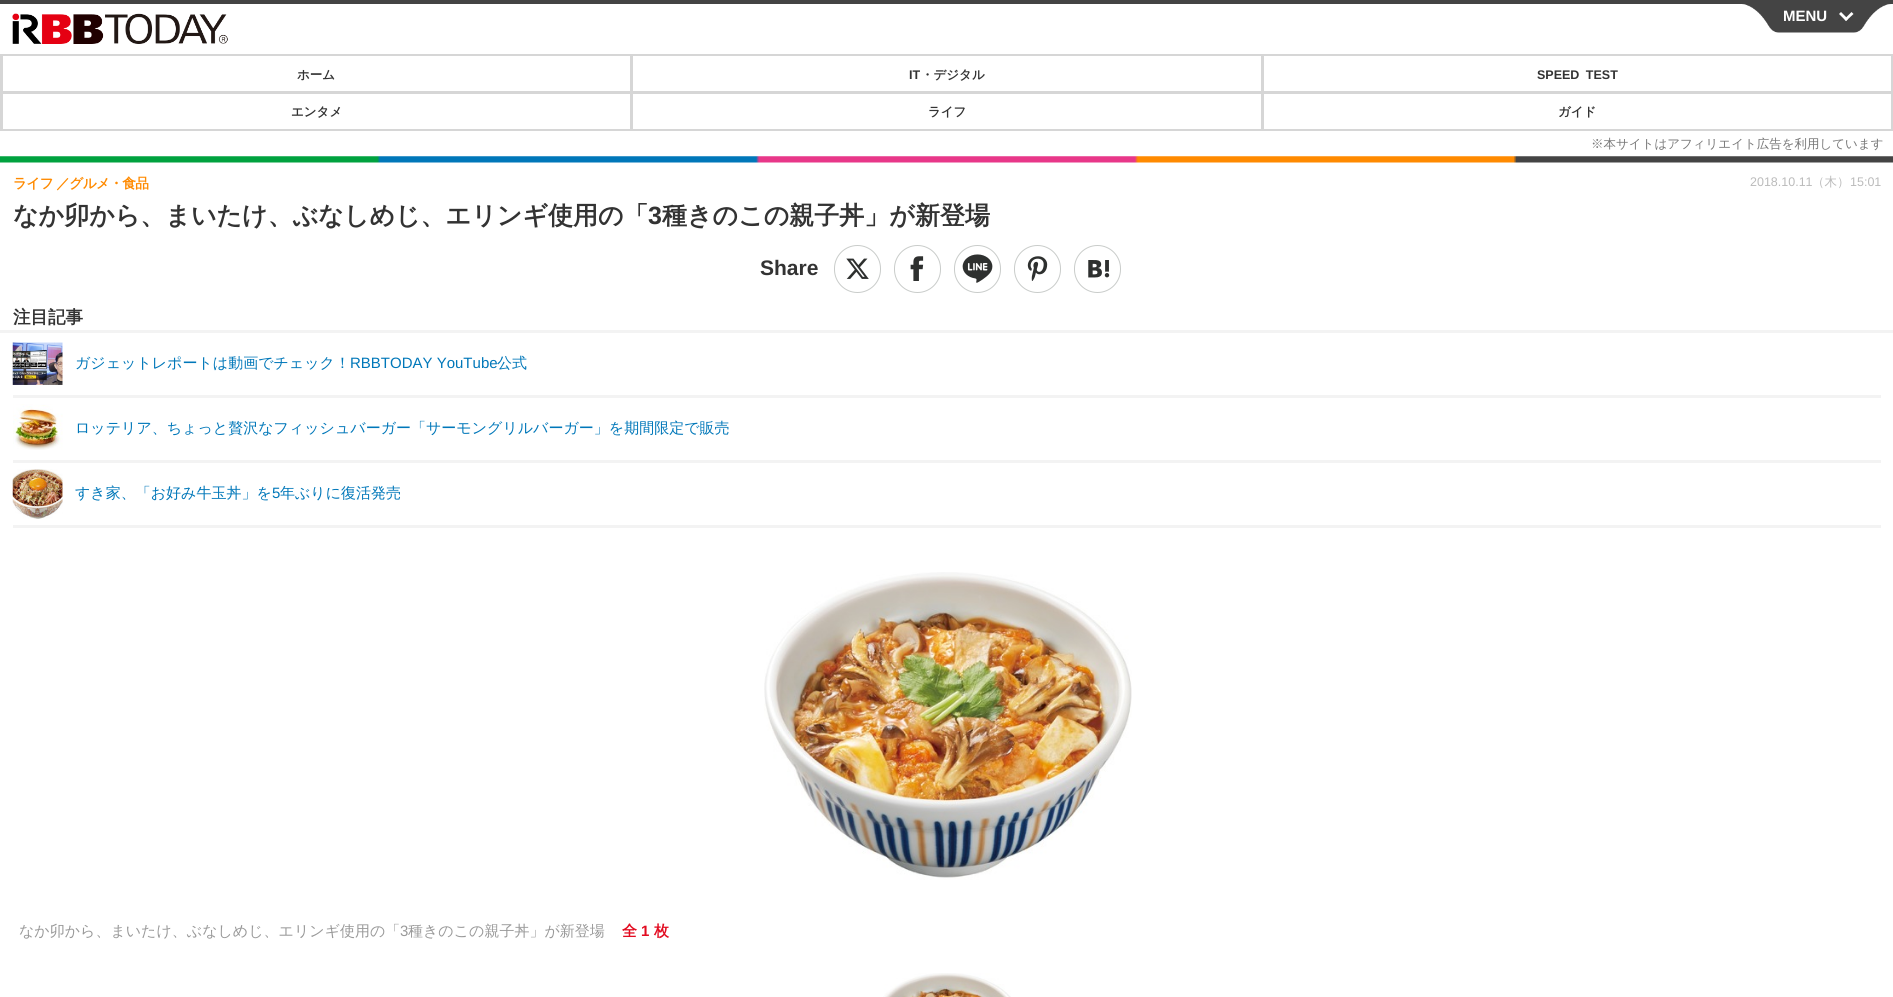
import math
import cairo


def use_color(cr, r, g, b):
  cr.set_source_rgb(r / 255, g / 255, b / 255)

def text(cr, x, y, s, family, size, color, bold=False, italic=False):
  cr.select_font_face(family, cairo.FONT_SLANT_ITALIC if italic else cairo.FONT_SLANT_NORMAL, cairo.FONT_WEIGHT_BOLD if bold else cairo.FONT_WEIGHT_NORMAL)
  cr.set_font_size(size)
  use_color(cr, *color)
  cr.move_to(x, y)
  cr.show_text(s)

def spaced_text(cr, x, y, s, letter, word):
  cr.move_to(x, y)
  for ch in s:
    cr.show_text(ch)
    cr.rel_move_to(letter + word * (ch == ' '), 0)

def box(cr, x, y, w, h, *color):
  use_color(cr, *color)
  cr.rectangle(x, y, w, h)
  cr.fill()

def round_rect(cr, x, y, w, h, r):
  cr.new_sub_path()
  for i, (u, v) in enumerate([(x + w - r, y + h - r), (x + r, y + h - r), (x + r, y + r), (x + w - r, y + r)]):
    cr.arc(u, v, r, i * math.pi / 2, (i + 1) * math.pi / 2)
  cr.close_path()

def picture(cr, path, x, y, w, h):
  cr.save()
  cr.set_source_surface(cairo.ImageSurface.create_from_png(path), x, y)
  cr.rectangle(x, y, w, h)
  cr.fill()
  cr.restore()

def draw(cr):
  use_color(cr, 255, 255, 255)
  cr.paint()
  picture(cr, "img_01.png", 12, 13, 216, 31)
  box(cr, 0, 0, 1893, 4, 68, 68, 68)
  picture(cr, "img_02.png", 1742, 4, 149, 29)
  use_color(cr, 255, 255, 255)
  cr.new_path()
  cr.move_to(1851.5, 12)
  cr.line_to(1853.5, 14)
  cr.line_to(1846, 21)
  cr.line_to(1844.5, 19)
  cr.close_path()
  cr.fill()
  cr.new_path()
  cr.move_to(1841, 12)
  cr.line_to(1848, 19)
  cr.line_to(1846, 21)
  cr.line_to(1839, 14)
  cr.close_path()
  cr.fill()
  box(cr, 0, 54, 1893, 2, 214, 214, 214)
  box(cr, 0, 54, 3, 77, 214, 214, 214)
  box(cr, 630, 56, 3, 75, 214, 214, 214)
  box(cr, 3, 91, 630, 3, 214, 214, 214)
  box(cr, 1261, 56, 3, 75, 214, 214, 214)
  box(cr, 633, 91, 631, 3, 214, 214, 214)
  box(cr, 1891, 56, 2, 75, 214, 214, 214)
  box(cr, 1264, 91, 629, 3, 214, 214, 214)
  box(cr, 3, 129, 1890, 2, 214, 214, 214)
  picture(cr, "img_03.png", 0, 156, 1893, 7)
  round_rect(cr, 834.5, 245.5, 46, 47, 23)
  use_color(cr, 201, 204, 202)
  cr.set_line_width(1)
  cr.stroke()
  picture(cr, "img_04.png", 846, 258, 23, 21)
  round_rect(cr, 894.5, 245.5, 46, 47, 23)
  cr.stroke()
  picture(cr, "img_05.png", 910, 256, 14, 25)
  round_rect(cr, 954.5, 245.5, 46, 47, 23)
  cr.stroke()
  picture(cr, "img_06.png", 962, 254, 31, 29)
  round_rect(cr, 1014.5, 245.5, 46, 47, 23)
  cr.stroke()
  picture(cr, "img_07.png", 1027, 256, 21, 25)
  round_rect(cr, 1074.5, 245.5, 46, 47, 23)
  cr.stroke()
  picture(cr, "img_08.png", 1088, 260, 22, 18)
  box(cr, 0, 330, 1893, 3, 243, 243, 243)
  box(cr, 13, 395, 1868, 3, 243, 243, 243)
  picture(cr, "img_09.png", 12, 342, 51, 43)
  box(cr, 13, 460, 1868, 3, 243, 243, 243)
  picture(cr, "img_10.png", 13, 404, 50, 46)
  box(cr, 13, 525, 1868, 3, 243, 243, 243)
  picture(cr, "img_11.png", 12, 469, 51, 50)
  picture(cr, "img_12.png", 764, 572, 368, 308)
  picture(cr, "img_13.png", 883, 973, 128, 24)
  text(cr, 1783, 21, "MENU", "Liberation Sans", 15, (255, 255, 255), bold=True)
  text(cr, 297, 79, "ホーム", "WenQuanYi Zen Hei", 12.5, (51, 51, 51), bold=True)
  text(cr, 909, 79, "IT", "Liberation Sans", 12.5, (51, 51, 51), bold=True)
  text(cr, 921, 79, "・デジタル", "WenQuanYi Zen Hei", 12.5, (51, 51, 51), bold=True)
  cr.select_font_face("Liberation Sans", cairo.FONT_SLANT_NORMAL, cairo.FONT_WEIGHT_BOLD)
  spaced_text(cr, 1537, 79, "SPEED TEST", 0, 3)
  text(cr, 291, 116, "エンタメ", "WenQuanYi Zen Hei", 12.5, (51, 51, 51), bold=True)
  text(cr, 928, 116, "ライフ", "WenQuanYi Zen Hei", 12.5, (51, 51, 51), bold=True)
  text(cr, 1558, 116, "ガイド", "WenQuanYi Zen Hei", 12.5, (51, 51, 51), bold=True)
  text(cr, 1591, 148, "※本サイトはアフィリエイト広告を利用しています", "WenQuanYi Zen Hei Medium", 12.5, (119, 119, 119))
  cr.select_font_face("WenQuanYi Zen Hei", cairo.FONT_SLANT_NORMAL, cairo.FONT_WEIGHT_BOLD)
  cr.set_font_size(13.75)
  use_color(cr, 255, 138, 0)
  spaced_text(cr, 13, 188, "ライフ ／グルメ・食品", -0.75, 0)
  text(cr, 1750, 186, "2018.10.11", "Liberation Sans", 12.5, (187, 187, 187))
  text(cr, 1812, 186, "（木）", "WenQuanYi Zen Hei Medium", 12.5, (187, 187, 187))
  text(cr, 1850, 186, "15:01", "Liberation Sans", 12.5, (187, 187, 187))
  text(cr, 13, 224, "なか卯から、まいたけ、ぶなしめじ、エリンギ使用の「", "WenQuanYi Zen Hei", 25, (51, 51, 51), bold=True)
  text(cr, 648, 224, "3", "Liberation Sans", 25, (51, 51, 51), bold=True)
  text(cr, 662, 224, "種きのこの親子丼」が新登場", "WenQuanYi Zen Hei", 25, (51, 51, 51), bold=True)
  text(cr, 760, 275, "Share", "Liberation Sans", 21, (51, 51, 51), bold=True)
  text(cr, 13, 323, "注目記事", "WenQuanYi Zen Hei", 17.5, (51, 51, 51), bold=True)
  text(cr, 75, 368, "ガジェットレポートは動画でチェック！", "WenQuanYi Zen Hei Medium", 15, (0, 119, 185))
  text(cr, 350, 368, "RBBTODAY YouTube", "Liberation Sans", 15, (0, 119, 185))
  text(cr, 497, 368, "公式", "WenQuanYi Zen Hei Medium", 15, (0, 119, 185))
  text(cr, 75, 433, "ロッテリア、ちょっと贅沢なフィッシュバーガー「サーモングリルバーガー」を期間限定で販売", "WenQuanYi Zen Hei Medium", 15, (0, 119, 185))
  text(cr, 75, 498, "すき家、「お好み牛玉丼」を", "WenQuanYi Zen Hei Medium", 15, (0, 119, 185))
  text(cr, 272, 498, "5", "Liberation Sans", 15, (0, 119, 185))
  text(cr, 280, 498, "年ぶりに復活発売", "WenQuanYi Zen Hei Medium", 15, (0, 119, 185))
  text(cr, 19, 936, "なか卯から、まいたけ、ぶなしめじ、エリンギ使用の「", "WenQuanYi Zen Hei Medium", 15, (153, 153, 153))
  text(cr, 400, 936, "3", "Liberation Sans", 15, (153, 153, 153))
  text(cr, 408, 936, "種きのこの親子丼」が新登場", "WenQuanYi Zen Hei Medium", 15, (153, 153, 153))
  text(cr, 622, 936, "全", "WenQuanYi Zen Hei", 15, (226, 11, 32), bold=True)
  text(cr, 641, 936, "1", "Liberation Sans", 15, (226, 11, 32), bold=True)
  text(cr, 654, 936, "枚", "WenQuanYi Zen Hei", 15, (226, 11, 32), bold=True)


surface = cairo.ImageSurface(cairo.FORMAT_RGB24, 1893, 997)
cr = cairo.Context(surface)
options = cairo.FontOptions()
options.set_hint_metrics(cairo.HINT_METRICS_OFF)
options.set_hint_style(cairo.HINT_STYLE_NONE)
cr.set_font_options(options)
cr.set_miter_limit(4)
draw(cr)
surface.write_to_png("out.png")
